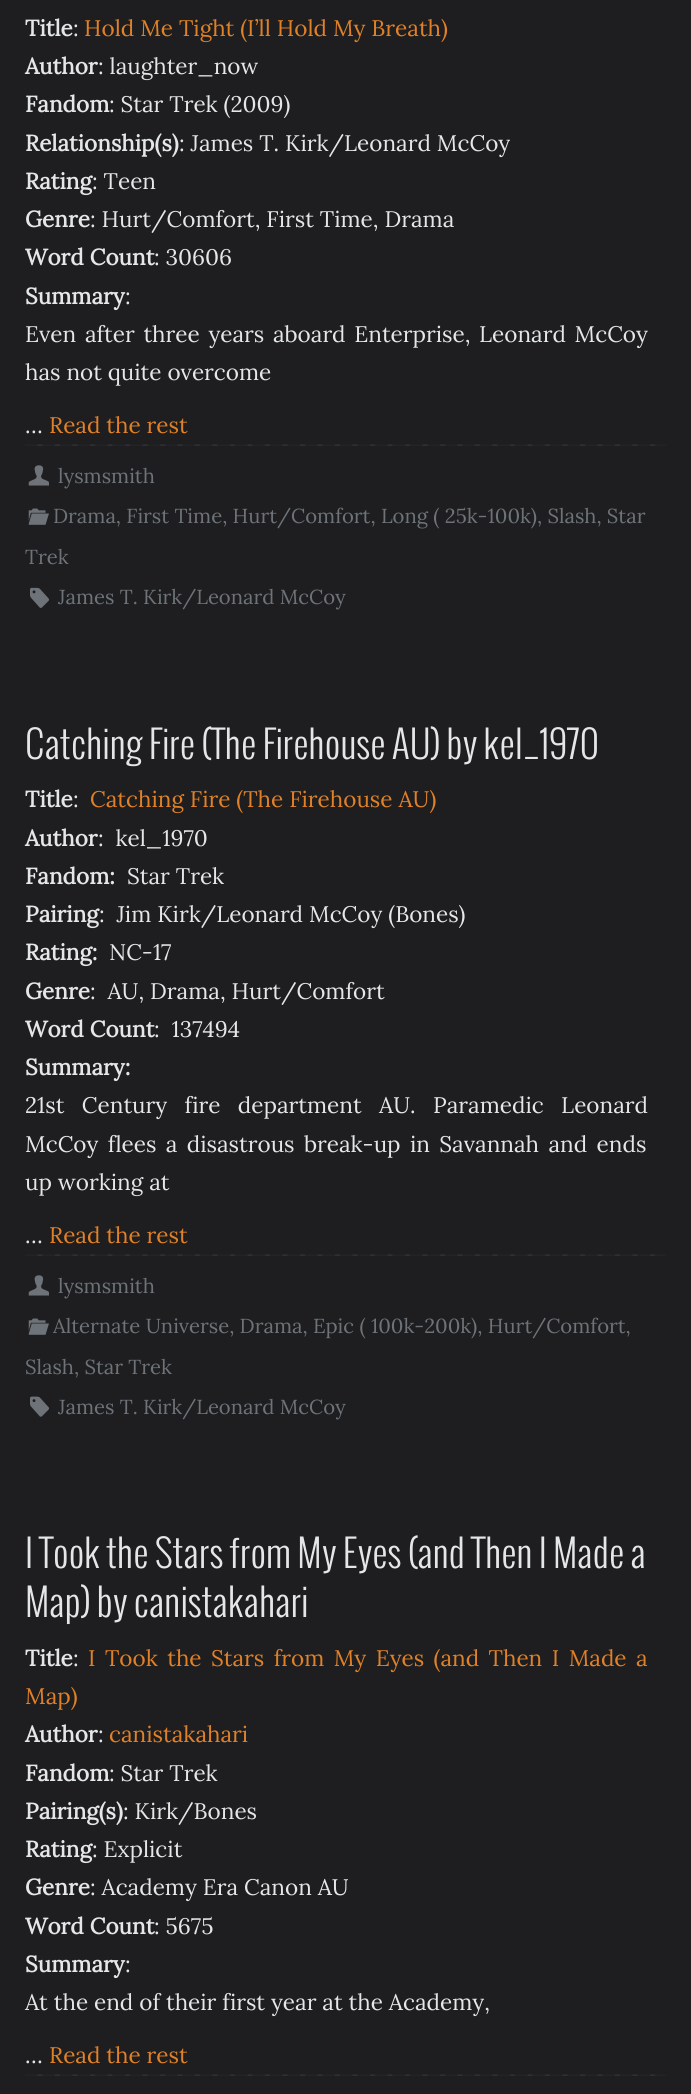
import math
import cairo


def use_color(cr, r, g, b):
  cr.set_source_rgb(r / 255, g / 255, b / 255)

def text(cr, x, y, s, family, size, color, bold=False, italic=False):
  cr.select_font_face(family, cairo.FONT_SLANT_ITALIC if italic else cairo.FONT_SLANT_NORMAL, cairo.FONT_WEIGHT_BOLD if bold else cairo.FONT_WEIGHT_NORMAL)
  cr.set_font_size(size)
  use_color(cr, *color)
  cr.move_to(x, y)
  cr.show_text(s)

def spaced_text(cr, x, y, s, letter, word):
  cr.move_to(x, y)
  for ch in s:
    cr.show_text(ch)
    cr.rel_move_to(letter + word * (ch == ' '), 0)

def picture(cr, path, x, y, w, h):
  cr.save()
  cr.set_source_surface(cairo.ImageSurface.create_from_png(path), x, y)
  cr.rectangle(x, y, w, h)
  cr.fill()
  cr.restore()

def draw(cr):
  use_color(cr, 30, 30, 32)
  cr.paint()
  picture(cr, "img_01.png", 25, 444, 641, 2)
  picture(cr, "img_02.png", 28, 465, 21, 21)
  picture(cr, "img_03.png", 28, 508, 21, 17)
  picture(cr, "img_04.png", 30, 587, 19, 21)
  picture(cr, "img_01.png", 25, 1254, 641, 2)
  picture(cr, "img_02.png", 28, 1275, 21, 21)
  picture(cr, "img_03.png", 28, 1318, 21, 17)
  picture(cr, "img_05.png", 30, 1396, 19, 21)
  picture(cr, "img_01.png", 25, 2074, 641, 2)
  text(cr, 25, 36, "Title", "Lora", 22.5, (228, 230, 231), bold=True)
  text(cr, 73, 36, ":", "Lora", 22.5, (228, 230, 231))
  text(cr, 84, 36, "Hold Me Tight (I’ll Hold My Breath)", "Lora", 22.5, (225, 129, 39))
  text(cr, 25, 74, "Author", "Lora", 22.5, (228, 230, 231), bold=True)
  text(cr, 98, 74, ": laughter_now", "Lora", 22.5, (228, 230, 231))
  text(cr, 25, 112, "Fandom", "Lora", 22.5, (228, 230, 231), bold=True)
  text(cr, 109, 112, ": Star Trek (2009)", "Lora", 22.5, (228, 230, 231))
  text(cr, 25, 151, "Relationship(s)", "Lora", 22.5, (228, 230, 231), bold=True)
  text(cr, 179, 151, ": James T. Kirk/Leonard McCoy", "Lora", 22.5, (228, 230, 231))
  text(cr, 25, 189, "Rating", "Lora", 22.5, (228, 230, 231), bold=True)
  text(cr, 92, 189, ": Teen", "Lora", 22.5, (228, 230, 231))
  text(cr, 25, 227, "Genre", "Lora", 22.5, (228, 230, 231), bold=True)
  text(cr, 90, 227, ": Hurt/Comfort, First Time, Drama", "Lora", 22.5, (228, 230, 231))
  text(cr, 25, 265, "Word Count", "Lora", 22.5, (228, 230, 231), bold=True)
  text(cr, 154, 265, ": 30606", "Lora", 22.5, (228, 230, 231))
  text(cr, 25, 304, "Summary", "Lora", 22.5, (228, 230, 231), bold=True)
  text(cr, 125, 304, ":", "Lora", 22.5, (228, 230, 231))
  spaced_text(cr, 25, 342, "Even after three years aboard Enterprise, Leonard McCoy", 0, 2.75)
  text(cr, 25, 380, "has not quite overcome", "Lora", 22.5, (228, 230, 231))
  text(cr, 25, 433, "…", "Lora", 22.5, (228, 230, 231))
  text(cr, 49, 433, "Read the rest", "Lora", 22.5, (225, 129, 39))
  text(cr, 58, 483, "lysmsmith", "Lora", 20.25, (109, 115, 120))
  text(cr, 53, 523, "Drama, First Time, Hurt/Comfort, Long ( 25k-100k), Slash, Star", "Lora", 20.25, (109, 115, 120))
  text(cr, 25, 564, "Trek", "Lora", 20.25, (109, 115, 120))
  text(cr, 58, 604, "James T. Kirk/Leonard McCoy", "Lora", 20.25, (109, 115, 120))
  text(cr, 25, 759, "Catching Fire (The Firehouse AU) by kel_1970", "Oswald Light", 37.5, (228, 230, 231))
  text(cr, 25, 807, "Title", "Lora", 22.5, (228, 230, 231), bold=True)
  text(cr, 73, 807, ":", "Lora", 22.5, (228, 230, 231))
  text(cr, 90, 807, "Catching Fire (The Firehouse AU)", "Lora", 22.5, (225, 129, 39))
  text(cr, 25, 846, "Author", "Lora", 22.5, (228, 230, 231), bold=True)
  text(cr, 98, 846, ":  kel_1970", "Lora", 22.5, (228, 230, 231))
  text(cr, 25, 884, "Fandom:", "Lora", 22.5, (228, 230, 231), bold=True)
  text(cr, 127, 884, "Star Trek", "Lora", 22.5, (228, 230, 231))
  text(cr, 25, 922, "Pairing", "Lora", 22.5, (228, 230, 231), bold=True)
  text(cr, 99, 922, ":  Jim Kirk/Leonard McCoy (Bones)", "Lora", 22.5, (228, 230, 231))
  text(cr, 25, 960, "Rating:", "Lora", 22.5, (228, 230, 231), bold=True)
  text(cr, 109, 960, "NC-17", "Lora", 22.5, (228, 230, 231))
  text(cr, 25, 999, "Genre", "Lora", 22.5, (228, 230, 231), bold=True)
  text(cr, 90, 999, ":  AU, Drama, Hurt/Comfort", "Lora", 22.5, (228, 230, 231))
  text(cr, 25, 1037, "Word Count", "Lora", 22.5, (228, 230, 231), bold=True)
  text(cr, 154, 1037, ":  137494", "Lora", 22.5, (228, 230, 231))
  text(cr, 25, 1075, "Summary:", "Lora", 22.5, (228, 230, 231), bold=True)
  cr.select_font_face("Lora")
  spaced_text(cr, 25, 1113, "21st Century fire department AU. Paramedic Leonard", 0, 11.5)
  spaced_text(cr, 25, 1152, "McCoy flees a disastrous break-up in Savannah and ends", 0, 3.5)
  text(cr, 25, 1190, "up working at", "Lora", 22.5, (228, 230, 231))
  text(cr, 25, 1243, "…", "Lora", 22.5, (228, 230, 231))
  text(cr, 49, 1243, "Read the rest", "Lora", 22.5, (225, 129, 39))
  text(cr, 58, 1293, "lysmsmith", "Lora", 20.25, (109, 115, 120))
  text(cr, 53, 1333, "Alternate Universe, Drama, Epic ( 100k-200k), Hurt/Comfort,", "Lora", 20.25, (109, 115, 120))
  text(cr, 25, 1374, "Slash, Star Trek", "Lora", 20.25, (109, 115, 120))
  text(cr, 58, 1414, "James T. Kirk/Leonard McCoy", "Lora", 20.25, (109, 115, 120))
  text(cr, 25, 1568, "I Took the Stars from My Eyes (and Then I Made a", "Oswald Light", 37.5, (228, 230, 231))
  text(cr, 25, 1617, "Map) by canistakahari", "Oswald Light", 37.5, (228, 230, 231))
  text(cr, 25, 1666, "Title", "Lora", 22.5, (228, 230, 231), bold=True)
  text(cr, 73, 1666, ":", "Lora", 22.5, (228, 230, 231))
  use_color(cr, 225, 129, 39)
  spaced_text(cr, 88, 1666, "I Took the Stars from My Eyes (and Then I Made a", 0, 3.5)
  text(cr, 25, 1704, "Map)", "Lora", 22.5, (225, 129, 39))
  text(cr, 25, 1742, "Author", "Lora", 22.5, (228, 230, 231), bold=True)
  text(cr, 98, 1742, ":", "Lora", 22.5, (228, 230, 231))
  text(cr, 109, 1742, "canistakahari", "Lora", 22.5, (225, 129, 39))
  text(cr, 25, 1781, "Fandom", "Lora", 22.5, (228, 230, 231), bold=True)
  text(cr, 109, 1781, ": Star Trek", "Lora", 22.5, (228, 230, 231))
  text(cr, 25, 1819, "Pairing(s)", "Lora", 22.5, (228, 230, 231), bold=True)
  text(cr, 123, 1819, ": Kirk/Bones", "Lora", 22.5, (228, 230, 231))
  text(cr, 25, 1857, "Rating", "Lora", 22.5, (228, 230, 231), bold=True)
  text(cr, 92, 1857, ": Explicit", "Lora", 22.5, (228, 230, 231))
  text(cr, 25, 1895, "Genre", "Lora", 22.5, (228, 230, 231), bold=True)
  text(cr, 90, 1895, ": Academy Era Canon AU", "Lora", 22.5, (228, 230, 231))
  text(cr, 25, 1934, "Word Count", "Lora", 22.5, (228, 230, 231), bold=True)
  text(cr, 154, 1934, ": 5675", "Lora", 22.5, (228, 230, 231))
  text(cr, 25, 1972, "Summary", "Lora", 22.5, (228, 230, 231), bold=True)
  text(cr, 125, 1972, ":", "Lora", 22.5, (228, 230, 231))
  text(cr, 25, 2010, "At the end of their first year at the Academy,", "Lora", 22.5, (228, 230, 231))
  text(cr, 25, 2063, "…", "Lora", 22.5, (228, 230, 231))
  text(cr, 49, 2063, "Read the rest", "Lora", 22.5, (225, 129, 39))


surface = cairo.ImageSurface(cairo.FORMAT_RGB24, 691, 2094)
cr = cairo.Context(surface)
options = cairo.FontOptions()
options.set_hint_metrics(cairo.HINT_METRICS_OFF)
options.set_hint_style(cairo.HINT_STYLE_NONE)
cr.set_font_options(options)
cr.set_miter_limit(4)
draw(cr)
surface.write_to_png("out.png")
